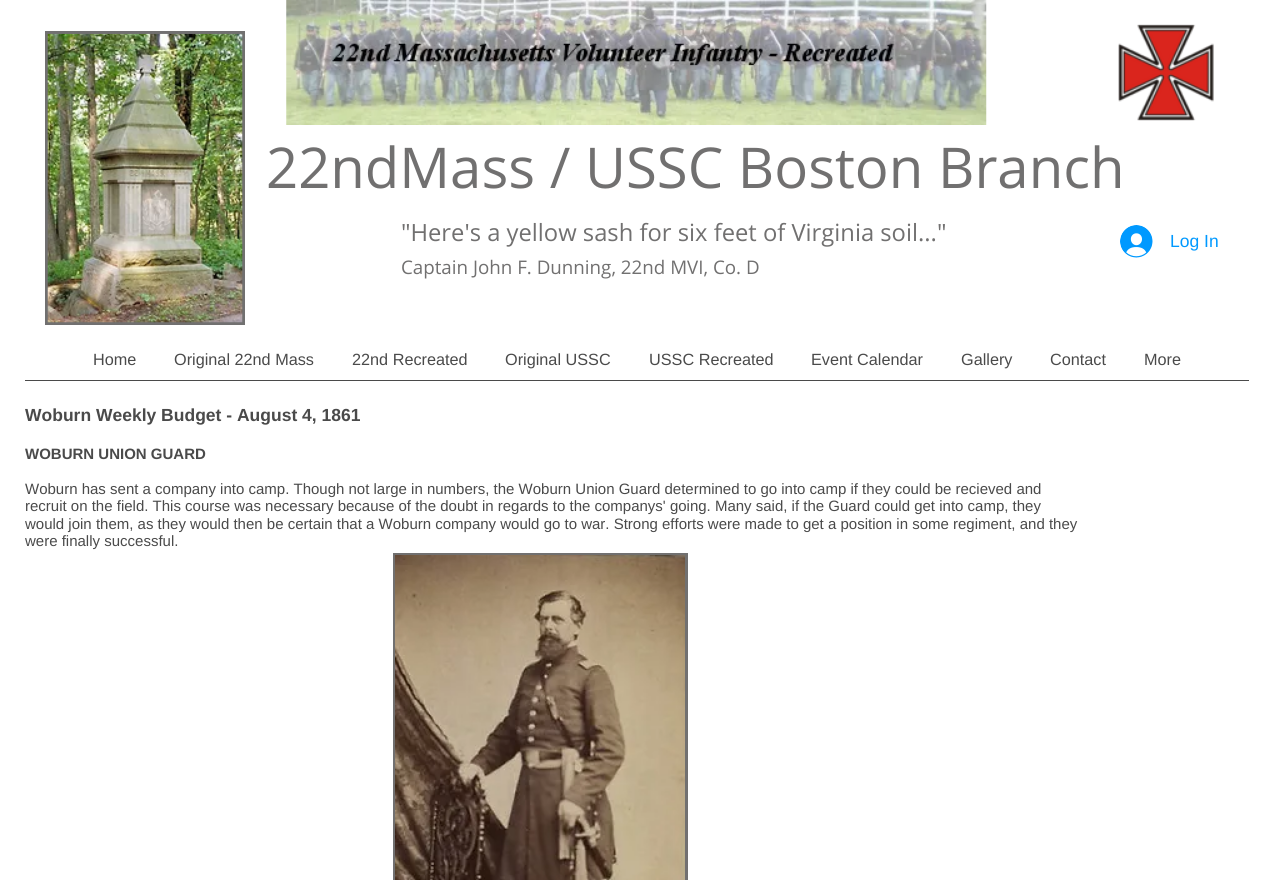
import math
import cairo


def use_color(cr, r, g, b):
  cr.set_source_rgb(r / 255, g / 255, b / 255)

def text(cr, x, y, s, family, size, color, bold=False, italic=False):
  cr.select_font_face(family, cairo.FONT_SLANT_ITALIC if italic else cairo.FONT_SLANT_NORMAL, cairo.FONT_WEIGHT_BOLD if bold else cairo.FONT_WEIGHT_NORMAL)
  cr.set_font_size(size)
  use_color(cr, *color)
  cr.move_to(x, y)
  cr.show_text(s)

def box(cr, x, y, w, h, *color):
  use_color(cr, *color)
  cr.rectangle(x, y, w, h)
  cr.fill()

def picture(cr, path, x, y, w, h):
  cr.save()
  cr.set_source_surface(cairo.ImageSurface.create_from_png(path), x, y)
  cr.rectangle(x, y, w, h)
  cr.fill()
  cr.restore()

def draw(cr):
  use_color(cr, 255, 255, 255)
  cr.paint()
  picture(cr, "img_01.png", 286, 0, 701, 125)
  box(cr, 45, 31, 200, 294, 113, 112, 112)
  picture(cr, "img_02.png", 47, 33, 196, 290)
  picture(cr, "img_03.png", 1118, 24, 96, 97)
  picture(cr, "img_04.png", 1120, 225, 33, 33)
  box(cr, 25, 380, 1224, 1, 74, 74, 74)
  box(cr, 393, 553, 295, 327, 113, 112, 112)
  picture(cr, "img_05.png", 395, 555, 290, 325)
  text(cr, 266, 188, "22ndMass / USSC Boston Branch", "Open Sans", 56.25, (113, 112, 112))
  text(cr, 401, 241, "\"Here's a yellow sash for six feet of Virginia soil...\"", "Open Sans", 23.75, (113, 112, 112))
  text(cr, 401, 274, "Captain John F. Dunning, 22nd MVI, Co. D", "Open Sans", 18.75, (113, 112, 112))
  text(cr, 1170, 247, "Log In", "Liberation Sans", 17.5, (0, 153, 255))
  text(cr, 93, 365, "Home", "Liberation Sans", 16.25, (74, 74, 74))
  text(cr, 174, 365, "Original 22nd Mass", "Liberation Sans", 16.25, (74, 74, 74))
  text(cr, 352, 365, "22nd Recreated", "Liberation Sans", 16.25, (74, 74, 74))
  text(cr, 505, 365, "Original USSC", "Liberation Sans", 16.25, (74, 74, 74))
  text(cr, 649, 365, "USSC Recreated", "Liberation Sans", 16.25, (74, 74, 74))
  text(cr, 811, 365, "Event Calendar", "Liberation Sans", 16.25, (74, 74, 74))
  text(cr, 961, 365, "Gallery", "Liberation Sans", 16.25, (74, 74, 74))
  text(cr, 1050, 365, "Contact", "Liberation Sans", 16.25, (74, 74, 74))
  text(cr, 1144, 365, "More", "Liberation Sans", 16.25, (74, 74, 74))
  text(cr, 25, 421, "Woburn Weekly Budget - August 4, 1861", "Liberation Sans", 17.5, (74, 74, 74), bold=True)
  text(cr, 25, 459, "WOBURN UNION GUARD", "Liberation Sans", 15, (74, 74, 74), bold=True)
  text(cr, 25, 494, "Woburn has sent a company into camp. Though not large in numbers, the Woburn Union Guard determined to go into camp if they could be recieved and", "Liberation Sans", 15, (74, 74, 74))
  text(cr, 25, 511, "recruit on the field. This course was necessary because of the doubt in regards to the companys' going. Many said, if the Guard could get into camp, they", "Liberation Sans", 15, (74, 74, 74))
  text(cr, 25, 529, "would join them, as they would then be certain that a Woburn company would go to war. Strong efforts were made to get a position in some regiment, and they", "Liberation Sans", 15, (74, 74, 74))
  text(cr, 25, 546, "were finally successful.", "Liberation Sans", 15, (74, 74, 74))


surface = cairo.ImageSurface(cairo.FORMAT_RGB24, 1272, 880)
cr = cairo.Context(surface)
options = cairo.FontOptions()
options.set_hint_metrics(cairo.HINT_METRICS_OFF)
options.set_hint_style(cairo.HINT_STYLE_NONE)
cr.set_font_options(options)
cr.set_miter_limit(4)
draw(cr)
surface.write_to_png("out.png")
